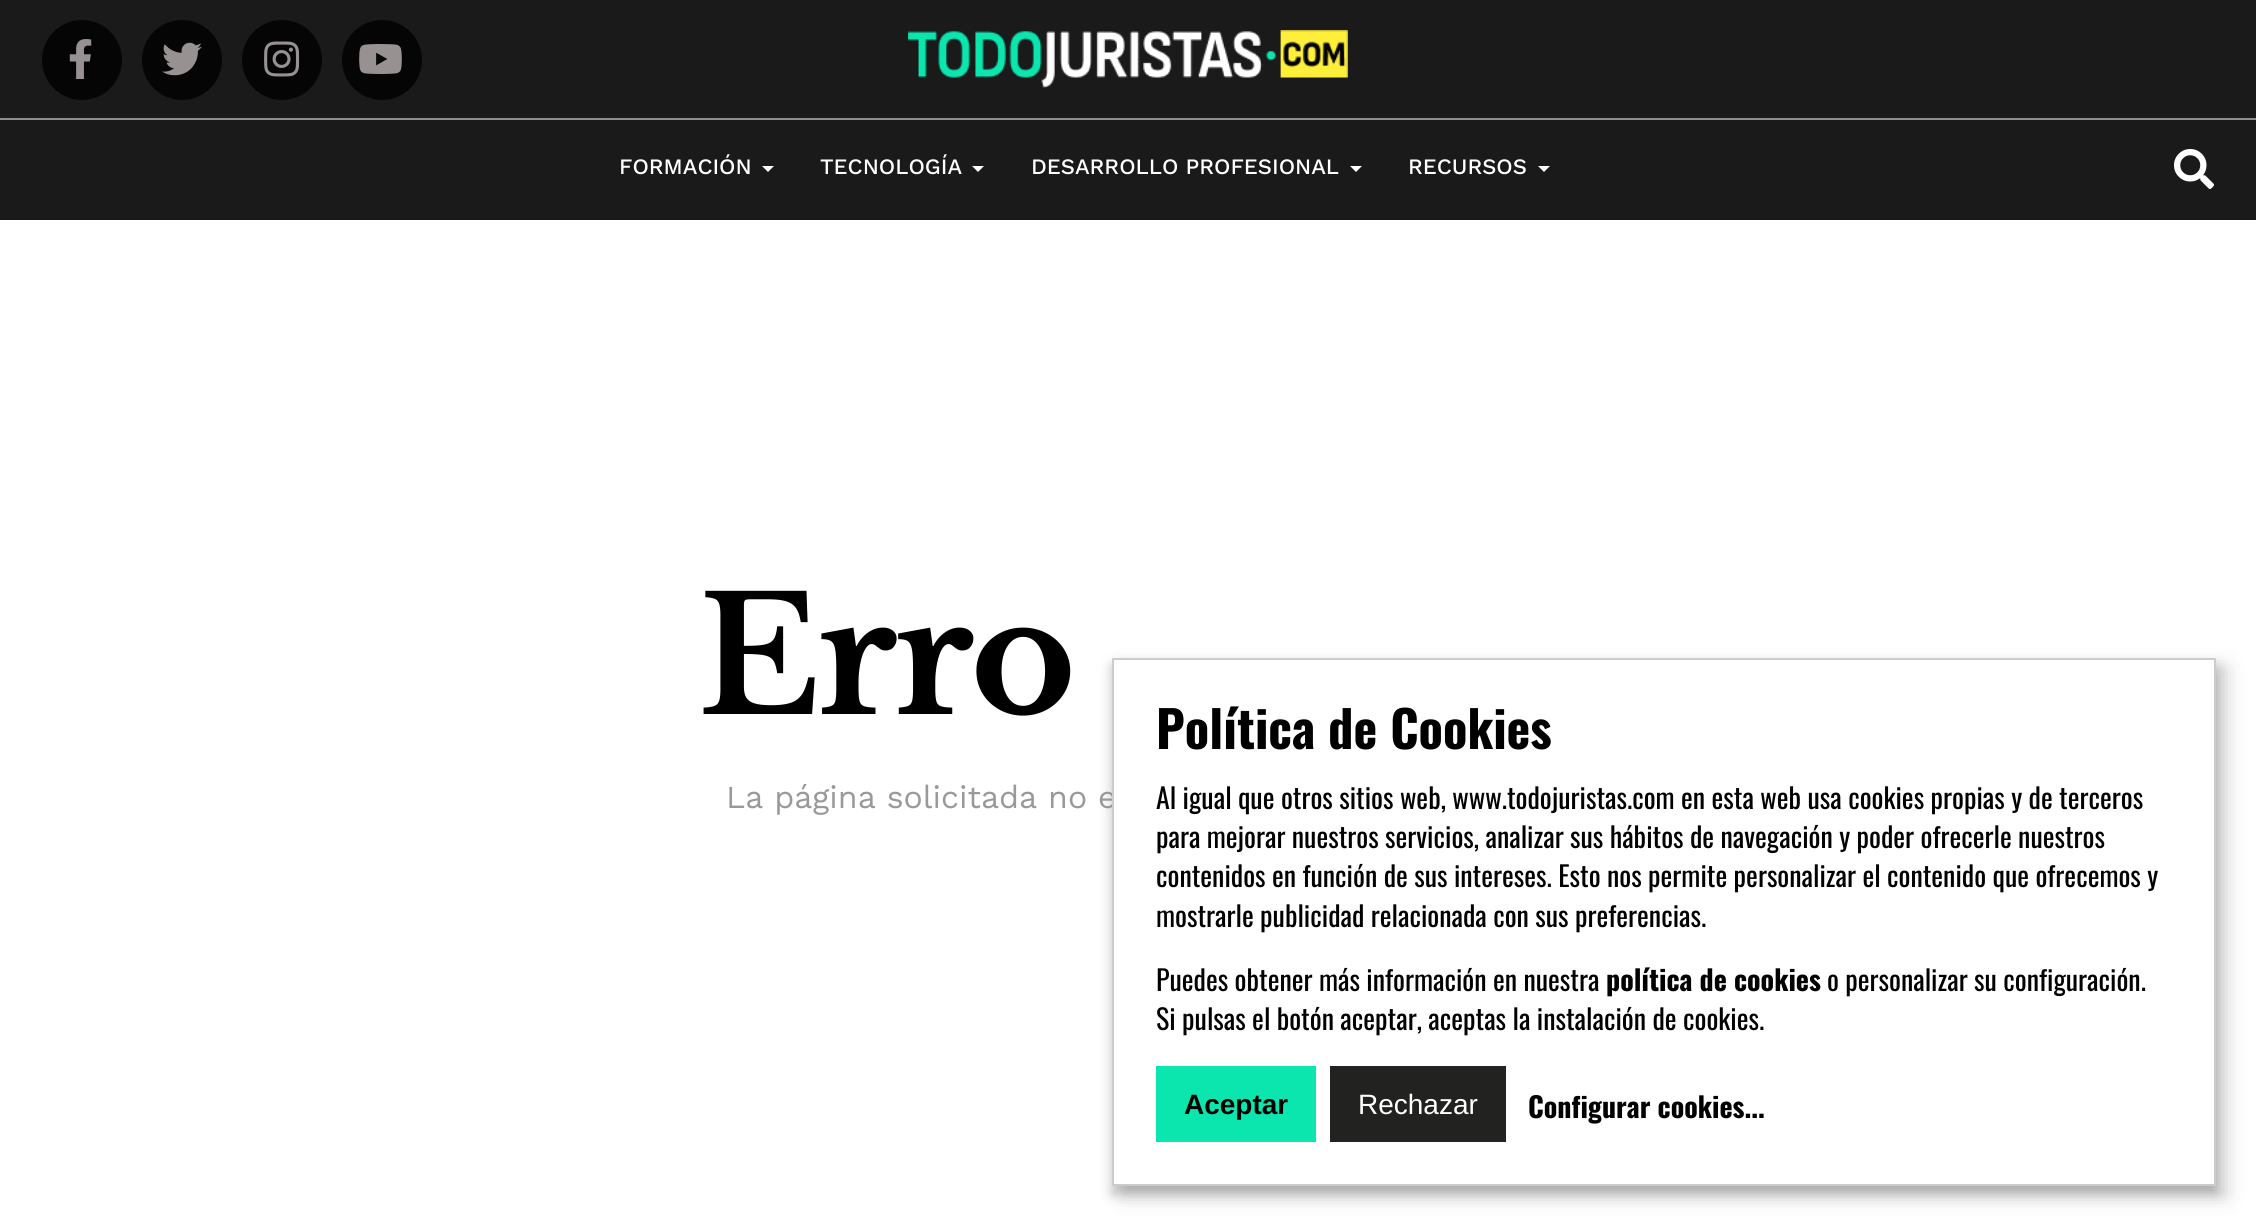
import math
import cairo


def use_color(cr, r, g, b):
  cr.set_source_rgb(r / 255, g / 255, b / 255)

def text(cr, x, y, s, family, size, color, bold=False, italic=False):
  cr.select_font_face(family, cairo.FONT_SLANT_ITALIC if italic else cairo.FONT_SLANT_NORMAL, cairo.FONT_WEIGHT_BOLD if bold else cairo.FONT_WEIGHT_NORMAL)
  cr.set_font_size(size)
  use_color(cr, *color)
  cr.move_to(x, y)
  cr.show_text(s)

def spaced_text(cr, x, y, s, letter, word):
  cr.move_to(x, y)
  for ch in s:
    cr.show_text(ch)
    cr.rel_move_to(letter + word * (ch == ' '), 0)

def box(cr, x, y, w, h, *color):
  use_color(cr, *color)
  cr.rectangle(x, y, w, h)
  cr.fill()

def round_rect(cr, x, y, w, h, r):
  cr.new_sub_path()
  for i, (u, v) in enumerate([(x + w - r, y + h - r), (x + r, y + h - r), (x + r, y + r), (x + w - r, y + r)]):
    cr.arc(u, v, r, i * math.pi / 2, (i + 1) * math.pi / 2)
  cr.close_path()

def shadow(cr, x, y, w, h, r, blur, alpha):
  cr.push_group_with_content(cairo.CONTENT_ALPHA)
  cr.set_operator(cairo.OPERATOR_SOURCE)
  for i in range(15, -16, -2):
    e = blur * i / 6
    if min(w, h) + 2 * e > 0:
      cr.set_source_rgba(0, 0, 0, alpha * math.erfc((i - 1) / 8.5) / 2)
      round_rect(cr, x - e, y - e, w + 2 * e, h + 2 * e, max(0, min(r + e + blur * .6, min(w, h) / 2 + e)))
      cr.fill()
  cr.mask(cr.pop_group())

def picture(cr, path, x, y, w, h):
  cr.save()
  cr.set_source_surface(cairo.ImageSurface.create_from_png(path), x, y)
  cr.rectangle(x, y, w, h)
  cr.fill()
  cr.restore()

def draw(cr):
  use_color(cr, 255, 255, 255)
  cr.paint()
  box(cr, 0, 0, 2256, 118, 26, 26, 26)
  use_color(cr, 5, 5, 5)
  cr.arc(82, 60, 40, 0, 2 * math.pi)
  cr.fill()
  picture(cr, "img_01.png", 69, 39, 23, 40)
  cr.arc(182, 60, 40, 0, 2 * math.pi)
  cr.fill()
  picture(cr, "img_02.png", 162, 42, 40, 34)
  cr.arc(282, 60, 40, 0, 2 * math.pi)
  cr.fill()
  picture(cr, "img_03.png", 264, 41, 36, 36)
  cr.arc(382, 60, 40, 0, 2 * math.pi)
  cr.fill()
  picture(cr, "img_04.png", 359, 44, 43, 30)
  picture(cr, "img_05.png", 908, 30, 440, 58)
  box(cr, 0, 120, 2256, 100, 26, 26, 26)
  box(cr, 0, 118, 2256, 2, 144, 144, 144)
  use_color(cr, 255, 255, 255)
  cr.new_path()
  cr.move_to(762, 166)
  cr.line_to(774, 166)
  cr.line_to(768, 172)
  cr.close_path()
  cr.fill()
  cr.new_path()
  cr.move_to(972, 166)
  cr.line_to(984, 166)
  cr.line_to(978, 172)
  cr.close_path()
  cr.fill()
  cr.new_path()
  cr.move_to(1350, 166)
  cr.line_to(1362, 166)
  cr.line_to(1356, 172)
  cr.close_path()
  cr.fill()
  cr.new_path()
  cr.move_to(1538, 166)
  cr.line_to(1550, 166)
  cr.line_to(1544, 172)
  cr.close_path()
  cr.fill()
  picture(cr, "img_06.png", 2174, 149, 40, 40)
  use_color(cr, 0, 0, 0)
  shadow(cr, 1122, 668, 1104, 528, 0, 10, 0.19)
  shadow(cr, 1112, 666, 1104, 528, 0, 6, 0.2)
  text(cr, 619, 174, "FORMACIÓN", "Work Sans Medium", 22, (255, 255, 255))
  text(cr, 820, 174, "TECNOLOGÍA", "Work Sans Medium", 22, (255, 255, 255))
  text(cr, 1031, 174, "DESARROLLO PROFESIONAL", "Work Sans Medium", 22, (255, 255, 255))
  text(cr, 1408, 174, "RECURSOS", "Work Sans Medium", 22, (255, 255, 255))
  cr.select_font_face("Libre Baskerville", cairo.FONT_SLANT_NORMAL, cairo.FONT_WEIGHT_BOLD)
  cr.set_font_size(160)
  use_color(cr, 0, 0, 0)
  spaced_text(cr, 698, 714, "Erro", -3, 0)
  text(cr, 726, 808, "La página solicitada no e", "Work Sans", 32, (153, 153, 153))
  use_color(cr, 255, 255, 255)
  cr.rectangle(1113, 659, 1102, 526)
  cr.fill_preserve()
  use_color(cr, 204, 204, 204)
  cr.stroke()
  text(cr, 1156, 749, "Política de Cookies", "Oswald", 50.5, (0, 0, 0), bold=True)
  text(cr, 1156, 809, "Al igual que otros sitios web, www.todojuristas.com en esta web usa cookies propias y de terceros", "Oswald", 28, (0, 0, 0))
  text(cr, 1156, 848, "para mejorar nuestros servicios, analizar sus hábitos de navegación y poder ofrecerle nuestros", "Oswald", 28, (0, 0, 0))
  text(cr, 1156, 887, "contenidos en función de sus intereses. Esto nos permite personalizar el contenido que ofrecemos y", "Oswald", 28, (0, 0, 0))
  text(cr, 1156, 927, "mostrarle publicidad relacionada con sus preferencias.", "Oswald", 28, (0, 0, 0))
  text(cr, 1156, 991, "Puedes obtener más información en nuestra", "Oswald", 28, (0, 0, 0))
  text(cr, 1606, 991, "política de cookies", "Oswald", 28, (0, 0, 0), bold=True)
  text(cr, 1827, 991, "o personalizar su configuración.", "Oswald", 28, (0, 0, 0))
  text(cr, 1156, 1030, "Si pulsas el botón aceptar, aceptas la instalación de cookies.", "Oswald", 28, (0, 0, 0))
  box(cr, 1156, 1066, 160, 76, 11, 230, 175)
  text(cr, 1184, 1114, "Aceptar", "Liberation Sans", 28, (0, 0, 0), bold=True)
  box(cr, 1330, 1066, 176, 76, 34, 34, 33)
  text(cr, 1358, 1114, "Rechazar", "Liberation Sans", 28, (255, 255, 255))
  text(cr, 1528, 1118, "Configurar cookies...", "Oswald", 28, (0, 0, 0), bold=True)


surface = cairo.ImageSurface(cairo.FORMAT_RGB24, 2256, 1225)
cr = cairo.Context(surface)
options = cairo.FontOptions()
options.set_hint_metrics(cairo.HINT_METRICS_OFF)
options.set_hint_style(cairo.HINT_STYLE_NONE)
cr.set_font_options(options)
cr.set_miter_limit(4)
draw(cr)
surface.write_to_png("out.png")
